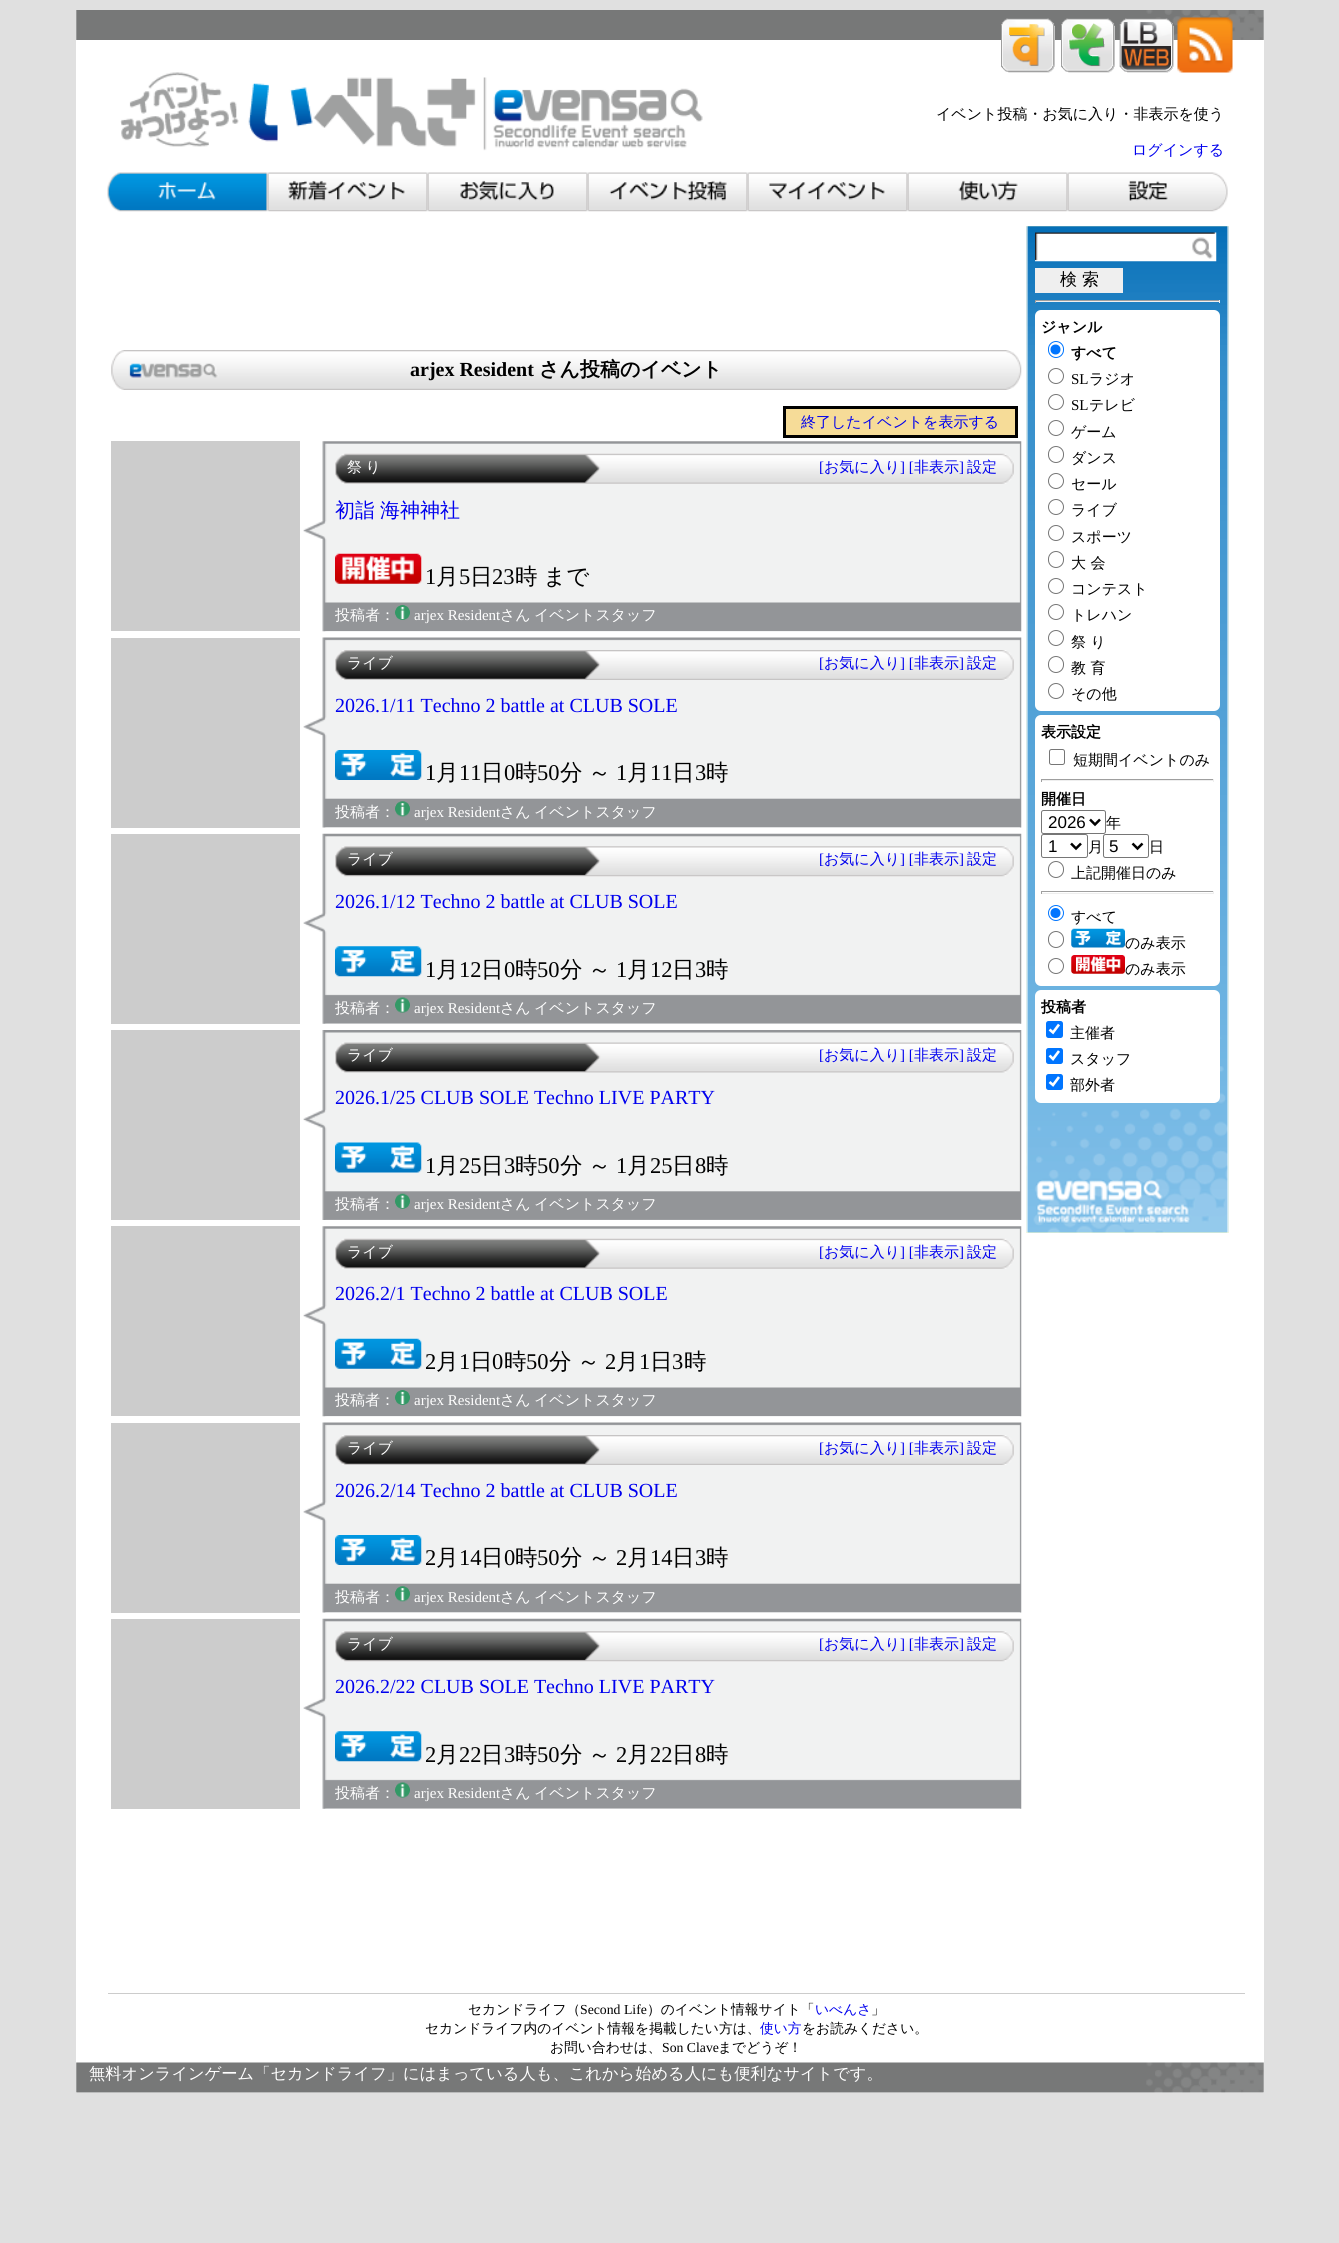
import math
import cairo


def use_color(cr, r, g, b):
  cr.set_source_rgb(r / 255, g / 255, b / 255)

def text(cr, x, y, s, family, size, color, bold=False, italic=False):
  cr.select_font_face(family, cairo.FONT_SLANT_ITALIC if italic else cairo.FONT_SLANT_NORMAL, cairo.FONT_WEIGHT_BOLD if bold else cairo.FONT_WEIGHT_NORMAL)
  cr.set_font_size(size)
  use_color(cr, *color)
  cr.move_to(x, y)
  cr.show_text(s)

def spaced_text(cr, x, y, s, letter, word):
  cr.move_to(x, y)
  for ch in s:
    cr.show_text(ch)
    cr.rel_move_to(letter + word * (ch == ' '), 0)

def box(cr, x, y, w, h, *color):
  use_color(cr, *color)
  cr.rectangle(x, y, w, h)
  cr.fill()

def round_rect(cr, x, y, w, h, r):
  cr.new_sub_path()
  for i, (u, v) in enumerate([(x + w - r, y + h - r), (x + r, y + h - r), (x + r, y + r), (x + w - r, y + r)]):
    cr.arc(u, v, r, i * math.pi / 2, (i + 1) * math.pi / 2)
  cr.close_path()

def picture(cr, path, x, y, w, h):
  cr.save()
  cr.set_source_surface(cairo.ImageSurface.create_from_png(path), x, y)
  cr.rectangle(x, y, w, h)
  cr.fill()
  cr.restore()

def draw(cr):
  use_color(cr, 224, 224, 224)
  cr.paint()
  box(cr, 76, 10, 1188, 2083, 255, 255, 255)
  picture(cr, "img_01.png", 76, 10, 1188, 30)
  picture(cr, "img_02.png", 1001, 18, 54, 55)
  picture(cr, "img_03.png", 1061, 18, 54, 55)
  picture(cr, "img_04.png", 1119, 18, 55, 55)
  picture(cr, "img_05.png", 1177, 17, 56, 56)
  picture(cr, "img_06.png", 120, 72, 583, 79)
  picture(cr, "img_07.png", 107, 172, 161, 40)
  picture(cr, "img_08.png", 267, 172, 161, 40)
  picture(cr, "img_09.png", 427, 172, 161, 40)
  picture(cr, "img_10.png", 587, 172, 161, 40)
  picture(cr, "img_11.png", 747, 172, 161, 40)
  picture(cr, "img_12.png", 907, 172, 161, 40)
  picture(cr, "img_13.png", 1067, 172, 161, 40)
  picture(cr, "img_14.png", 111, 350, 911, 40)
  use_color(cr, 246, 220, 152)
  cr.rectangle(784.5, 407.5, 232, 29)
  cr.fill_preserve()
  use_color(cr, 0, 0, 0)
  cr.set_line_width(3)
  cr.stroke()
  box(cr, 111, 441, 189, 190, 204, 204, 204)
  picture(cr, "img_15.png", 303, 441, 719, 191)
  picture(cr, "img_16.png", 335, 453, 679, 31)
  picture(cr, "img_17.png", 335, 553, 87, 31)
  picture(cr, "img_18.png", 395, 605, 15, 15)
  box(cr, 111, 638, 189, 190, 204, 204, 204)
  picture(cr, "img_19.png", 303, 637, 719, 191)
  picture(cr, "img_20.png", 335, 650, 679, 30)
  picture(cr, "img_21.png", 335, 750, 87, 30)
  picture(cr, "img_22.png", 395, 801, 15, 16)
  box(cr, 111, 834, 189, 190, 204, 204, 204)
  picture(cr, "img_23.png", 303, 833, 719, 191)
  picture(cr, "img_24.png", 335, 846, 679, 31)
  picture(cr, "img_25.png", 335, 946, 87, 31)
  picture(cr, "img_26.png", 395, 997, 15, 16)
  box(cr, 111, 1030, 189, 190, 204, 204, 204)
  picture(cr, "img_27.png", 303, 1030, 719, 190)
  picture(cr, "img_28.png", 335, 1042, 679, 31)
  picture(cr, "img_29.png", 335, 1142, 87, 31)
  picture(cr, "img_30.png", 395, 1193, 15, 16)
  box(cr, 111, 1226, 189, 190, 204, 204, 204)
  picture(cr, "img_31.png", 303, 1226, 719, 191)
  picture(cr, "img_16.png", 335, 1238, 679, 31)
  picture(cr, "img_32.png", 335, 1338, 87, 31)
  picture(cr, "img_18.png", 395, 1390, 15, 15)
  box(cr, 111, 1423, 189, 190, 204, 204, 204)
  picture(cr, "img_33.png", 303, 1422, 719, 191)
  picture(cr, "img_20.png", 335, 1435, 679, 30)
  picture(cr, "img_21.png", 335, 1535, 87, 30)
  picture(cr, "img_22.png", 395, 1586, 15, 16)
  box(cr, 111, 1619, 189, 190, 204, 204, 204)
  picture(cr, "img_34.png", 303, 1618, 719, 191)
  picture(cr, "img_24.png", 335, 1631, 679, 31)
  picture(cr, "img_25.png", 335, 1731, 87, 31)
  picture(cr, "img_26.png", 395, 1782, 15, 16)
  box(cr, 1026, 226, 203, 1007, 254, 254, 201)
  picture(cr, "img_35.png", 1026, 226, 203, 1007)
  picture(cr, "img_36.png", 1035, 232, 182, 30)
  box(cr, 1035, 268, 88, 25, 239, 239, 239)
  box(cr, 1035, 300, 185, 1, 159, 159, 159)
  box(cr, 1219, 300, 1, 3, 238, 238, 238)
  box(cr, 1035, 301, 185, 1, 238, 238, 238)
  box(cr, 1035, 300, 1, 3, 159, 159, 159)
  use_color(cr, 255, 255, 255)
  round_rect(cr, 1035, 310, 185, 401, 6)
  cr.fill()
  round_rect(cr, 1048.5, 341.5, 15, 16, 7.5)
  use_color(cr, 0, 117, 255)
  cr.set_line_width(1)
  cr.stroke()
  cr.arc(1055.5, 349.5, 5, 0, 2 * math.pi)
  cr.fill()
  cr.arc(1056, 376, 7.5, 0, 2 * math.pi)
  use_color(cr, 118, 118, 118)
  cr.stroke()
  cr.arc(1056, 402, 7.5, 0, 2 * math.pi)
  cr.stroke()
  cr.arc(1056, 428, 7.5, 0, 2 * math.pi)
  cr.stroke()
  round_rect(cr, 1048.5, 446.5, 15, 16, 7.5)
  cr.stroke()
  cr.arc(1056, 481, 7.5, 0, 2 * math.pi)
  cr.stroke()
  cr.arc(1056, 507, 7.5, 0, 2 * math.pi)
  cr.stroke()
  cr.arc(1056, 533, 7.5, 0, 2 * math.pi)
  cr.stroke()
  round_rect(cr, 1048.5, 551.5, 15, 16, 7.5)
  cr.stroke()
  cr.arc(1056, 586, 7.5, 0, 2 * math.pi)
  cr.stroke()
  cr.arc(1056, 612, 7.5, 0, 2 * math.pi)
  cr.stroke()
  cr.arc(1056, 638, 7.5, 0, 2 * math.pi)
  cr.stroke()
  round_rect(cr, 1048.5, 656.5, 15, 16, 7.5)
  cr.stroke()
  cr.arc(1056, 691, 7.5, 0, 2 * math.pi)
  cr.stroke()
  use_color(cr, 255, 255, 255)
  round_rect(cr, 1035, 715, 185, 271, 6)
  cr.fill()
  round_rect(cr, 1049.5, 749.5, 15, 15, 2)
  use_color(cr, 118, 118, 118)
  cr.stroke()
  box(cr, 1041, 779, 173, 1, 159, 159, 159)
  box(cr, 1213, 779, 1, 3, 238, 238, 238)
  box(cr, 1041, 780, 173, 1, 238, 238, 238)
  box(cr, 1041, 779, 1, 3, 159, 159, 159)
  round_rect(cr, 1041.5, 810.5, 64, 23, 2)
  use_color(cr, 118, 118, 118)
  cr.stroke()
  cr.new_path()
  cr.move_to(1090, 819.5)
  cr.line_to(1095, 824.5)
  cr.line_to(1100, 819.5)
  use_color(cr, 0, 0, 0)
  cr.set_line_width(2.5)
  cr.stroke()
  round_rect(cr, 1041.5, 834.5, 46, 23, 2)
  use_color(cr, 118, 118, 118)
  cr.set_line_width(1)
  cr.stroke()
  cr.new_path()
  cr.move_to(1071, 843.5)
  cr.line_to(1076, 848.5)
  cr.line_to(1081, 843.5)
  use_color(cr, 0, 0, 0)
  cr.set_line_width(2.5)
  cr.stroke()
  round_rect(cr, 1103.5, 834.5, 45, 23, 2)
  use_color(cr, 118, 118, 118)
  cr.set_line_width(1)
  cr.stroke()
  cr.new_path()
  cr.move_to(1132.5, 843.5)
  cr.line_to(1137.5, 848.5)
  cr.line_to(1142.5, 843.5)
  use_color(cr, 0, 0, 0)
  cr.set_line_width(2.5)
  cr.stroke()
  round_rect(cr, 1048.5, 861.5, 15, 16, 7.5)
  use_color(cr, 118, 118, 118)
  cr.set_line_width(1)
  cr.stroke()
  box(cr, 1041, 891, 173, 1, 159, 159, 159)
  box(cr, 1213, 891, 1, 3, 238, 238, 238)
  box(cr, 1041, 893, 173, 1, 238, 238, 238)
  box(cr, 1041, 891, 1, 3, 159, 159, 159)
  cr.arc(1056, 913, 7.5, 0, 2 * math.pi)
  use_color(cr, 0, 117, 255)
  cr.stroke()
  cr.arc(1055.5, 913, 5, 0, 2 * math.pi)
  cr.fill()
  round_rect(cr, 1048.5, 931.5, 15, 16, 7.5)
  use_color(cr, 118, 118, 118)
  cr.stroke()
  picture(cr, "img_37.png", 1071, 928, 54, 20)
  cr.arc(1056, 966, 7.5, 0, 2 * math.pi)
  cr.stroke()
  picture(cr, "img_38.png", 1071, 955, 54, 19)
  use_color(cr, 255, 255, 255)
  round_rect(cr, 1035, 990, 185, 113, 6)
  cr.fill()
  use_color(cr, 0, 117, 255)
  round_rect(cr, 1046, 1021, 17, 17, 2.5)
  cr.fill()
  cr.new_path()
  cr.move_to(1049.5, 1029.5)
  cr.line_to(1053, 1032.5)
  cr.line_to(1059, 1024.5)
  use_color(cr, 255, 255, 255)
  cr.set_line_width(2.6)
  cr.stroke()
  use_color(cr, 0, 117, 255)
  round_rect(cr, 1046, 1048, 17, 16, 2.5)
  cr.fill()
  cr.new_path()
  cr.move_to(1049.5, 1055.5)
  cr.line_to(1053, 1059)
  cr.line_to(1059, 1051)
  use_color(cr, 255, 255, 255)
  cr.stroke()
  use_color(cr, 0, 117, 255)
  round_rect(cr, 1046, 1074, 17, 16, 2.5)
  cr.fill()
  cr.new_path()
  cr.move_to(1049.5, 1082)
  cr.line_to(1053, 1085)
  cr.line_to(1059, 1077)
  use_color(cr, 255, 255, 255)
  cr.stroke()
  box(cr, 108, 1993, 1137, 1, 204, 204, 204)
  picture(cr, "img_39.png", 76, 2062, 1188, 31)
  text(cr, 936, 119, "イベント投稿・お気に入り・非表示を使う", "WenQuanYi Zen Hei Medium", 15, (0, 0, 0))
  text(cr, 1132, 155, "ログインする", "WenQuanYi Zen Hei Medium", 15, (0, 0, 238))
  text(cr, 410, 376, "arjex Resident", "Liberation Serif", 20, (0, 0, 0), bold=True)
  text(cr, 539, 376, "さん投稿のイベント", "WenQuanYi Zen Hei", 20, (0, 0, 0), bold=True)
  text(cr, 801, 427, "終了したイベントを表示する", "WenQuanYi Zen Hei Medium", 15, (0, 0, 238))
  use_color(cr, 255, 255, 255)
  spaced_text(cr, 347, 472, "祭 り", 0, -1)
  text(cr, 819, 472, "[", "Liberation Serif", 15, (0, 0, 238))
  text(cr, 824, 472, "お気に入り", "WenQuanYi Zen Hei Medium", 15, (0, 0, 238))
  text(cr, 900, 472, "] [", "Liberation Serif", 15, (0, 0, 238))
  text(cr, 914, 472, "非表示", "WenQuanYi Zen Hei Medium", 15, (0, 0, 238))
  text(cr, 959, 472, "]", "Liberation Serif", 15, (0, 0, 238))
  text(cr, 967, 472, "設定", "WenQuanYi Zen Hei Medium", 15, (0, 0, 238))
  cr.set_font_size(20)
  spaced_text(cr, 335, 517, "初詣 海神神社", 0, -1)
  text(cr, 425, 584, "1", "Liberation Serif", 22.5, (0, 0, 0))
  text(cr, 436, 584, "月", "WenQuanYi Zen Hei Medium", 22.5, (0, 0, 0))
  text(cr, 459, 584, "5", "Liberation Serif", 22.5, (0, 0, 0))
  text(cr, 470, 584, "日", "WenQuanYi Zen Hei Medium", 22.5, (0, 0, 0))
  text(cr, 492, 584, "23", "Liberation Serif", 22.5, (0, 0, 0))
  cr.select_font_face("WenQuanYi Zen Hei Medium")
  spaced_text(cr, 515, 584, "時 まで", 0, -1)
  text(cr, 335, 620, "投稿者：", "WenQuanYi Zen Hei Medium", 15, (255, 255, 255))
  text(cr, 414, 620, "arjex Resident", "Liberation Serif", 15, (255, 255, 255))
  text(cr, 500, 620, "さん", "WenQuanYi Zen Hei Medium", 15, (255, 255, 255))
  text(cr, 534, 620, "イベントスタッフ", "WenQuanYi Zen Hei Medium", 15, (255, 255, 255))
  text(cr, 347, 668, "ライブ", "WenQuanYi Zen Hei Medium", 15, (255, 255, 255))
  text(cr, 819, 668, "[", "Liberation Serif", 15, (0, 0, 238))
  text(cr, 824, 668, "お気に入り", "WenQuanYi Zen Hei Medium", 15, (0, 0, 238))
  text(cr, 900, 668, "] [", "Liberation Serif", 15, (0, 0, 238))
  text(cr, 914, 668, "非表示", "WenQuanYi Zen Hei Medium", 15, (0, 0, 238))
  text(cr, 959, 668, "]", "Liberation Serif", 15, (0, 0, 238))
  text(cr, 967, 668, "設定", "WenQuanYi Zen Hei Medium", 15, (0, 0, 238))
  text(cr, 335, 712, "2026.1/11 Techno 2 battle at CLUB SOLE", "Liberation Serif", 20, (0, 0, 238))
  text(cr, 425, 780, "1", "Liberation Serif", 22.5, (0, 0, 0))
  text(cr, 436, 780, "月", "WenQuanYi Zen Hei Medium", 22.5, (0, 0, 0))
  text(cr, 459, 780, "11", "Liberation Serif", 22.5, (0, 0, 0))
  text(cr, 481, 780, "日", "WenQuanYi Zen Hei Medium", 22.5, (0, 0, 0))
  text(cr, 504, 780, "0", "Liberation Serif", 22.5, (0, 0, 0))
  text(cr, 515, 780, "時", "WenQuanYi Zen Hei Medium", 22.5, (0, 0, 0))
  text(cr, 537, 780, "50", "Liberation Serif", 22.5, (0, 0, 0))
  cr.select_font_face("WenQuanYi Zen Hei Medium")
  spaced_text(cr, 560, 780, "分 ～", 0, -1)
  text(cr, 616, 780, "1", "Liberation Serif", 22.5, (0, 0, 0))
  text(cr, 627, 780, "月", "WenQuanYi Zen Hei Medium", 22.5, (0, 0, 0))
  text(cr, 650, 780, "11", "Liberation Serif", 22.5, (0, 0, 0))
  text(cr, 672, 780, "日", "WenQuanYi Zen Hei Medium", 22.5, (0, 0, 0))
  text(cr, 695, 780, "3", "Liberation Serif", 22.5, (0, 0, 0))
  text(cr, 706, 780, "時", "WenQuanYi Zen Hei Medium", 22.5, (0, 0, 0))
  text(cr, 335, 817, "投稿者：", "WenQuanYi Zen Hei Medium", 15, (255, 255, 255))
  text(cr, 414, 817, "arjex Resident", "Liberation Serif", 15, (255, 255, 255))
  text(cr, 500, 817, "さん", "WenQuanYi Zen Hei Medium", 15, (255, 255, 255))
  text(cr, 534, 817, "イベントスタッフ", "WenQuanYi Zen Hei Medium", 15, (255, 255, 255))
  text(cr, 347, 864, "ライブ", "WenQuanYi Zen Hei Medium", 15, (255, 255, 255))
  text(cr, 819, 864, "[", "Liberation Serif", 15, (0, 0, 238))
  text(cr, 824, 864, "お気に入り", "WenQuanYi Zen Hei Medium", 15, (0, 0, 238))
  text(cr, 900, 864, "] [", "Liberation Serif", 15, (0, 0, 238))
  text(cr, 914, 864, "非表示", "WenQuanYi Zen Hei Medium", 15, (0, 0, 238))
  text(cr, 959, 864, "]", "Liberation Serif", 15, (0, 0, 238))
  text(cr, 967, 864, "設定", "WenQuanYi Zen Hei Medium", 15, (0, 0, 238))
  text(cr, 335, 908, "2026.1/12 Techno 2 battle at CLUB SOLE", "Liberation Serif", 20, (0, 0, 238))
  text(cr, 425, 977, "1", "Liberation Serif", 22.5, (0, 0, 0))
  text(cr, 436, 977, "月", "WenQuanYi Zen Hei Medium", 22.5, (0, 0, 0))
  text(cr, 459, 977, "12", "Liberation Serif", 22.5, (0, 0, 0))
  text(cr, 481, 977, "日", "WenQuanYi Zen Hei Medium", 22.5, (0, 0, 0))
  text(cr, 504, 977, "0", "Liberation Serif", 22.5, (0, 0, 0))
  text(cr, 515, 977, "時", "WenQuanYi Zen Hei Medium", 22.5, (0, 0, 0))
  text(cr, 537, 977, "50", "Liberation Serif", 22.5, (0, 0, 0))
  cr.select_font_face("WenQuanYi Zen Hei Medium")
  spaced_text(cr, 560, 977, "分 ～", 0, -1)
  text(cr, 616, 977, "1", "Liberation Serif", 22.5, (0, 0, 0))
  text(cr, 627, 977, "月", "WenQuanYi Zen Hei Medium", 22.5, (0, 0, 0))
  text(cr, 650, 977, "12", "Liberation Serif", 22.5, (0, 0, 0))
  text(cr, 672, 977, "日", "WenQuanYi Zen Hei Medium", 22.5, (0, 0, 0))
  text(cr, 695, 977, "3", "Liberation Serif", 22.5, (0, 0, 0))
  text(cr, 706, 977, "時", "WenQuanYi Zen Hei Medium", 22.5, (0, 0, 0))
  text(cr, 335, 1013, "投稿者：", "WenQuanYi Zen Hei Medium", 15, (255, 255, 255))
  text(cr, 414, 1013, "arjex Resident", "Liberation Serif", 15, (255, 255, 255))
  text(cr, 500, 1013, "さん", "WenQuanYi Zen Hei Medium", 15, (255, 255, 255))
  text(cr, 534, 1013, "イベントスタッフ", "WenQuanYi Zen Hei Medium", 15, (255, 255, 255))
  text(cr, 347, 1060, "ライブ", "WenQuanYi Zen Hei Medium", 15, (255, 255, 255))
  text(cr, 819, 1060, "[", "Liberation Serif", 15, (0, 0, 238))
  text(cr, 824, 1060, "お気に入り", "WenQuanYi Zen Hei Medium", 15, (0, 0, 238))
  text(cr, 900, 1060, "] [", "Liberation Serif", 15, (0, 0, 238))
  text(cr, 914, 1060, "非表示", "WenQuanYi Zen Hei Medium", 15, (0, 0, 238))
  text(cr, 959, 1060, "]", "Liberation Serif", 15, (0, 0, 238))
  text(cr, 967, 1060, "設定", "WenQuanYi Zen Hei Medium", 15, (0, 0, 238))
  text(cr, 335, 1104, "2026.1/25 CLUB SOLE Techno LIVE PARTY", "Liberation Serif", 20, (0, 0, 238))
  text(cr, 425, 1173, "1", "Liberation Serif", 22.5, (0, 0, 0))
  text(cr, 436, 1173, "月", "WenQuanYi Zen Hei Medium", 22.5, (0, 0, 0))
  text(cr, 459, 1173, "25", "Liberation Serif", 22.5, (0, 0, 0))
  text(cr, 481, 1173, "日", "WenQuanYi Zen Hei Medium", 22.5, (0, 0, 0))
  text(cr, 504, 1173, "3", "Liberation Serif", 22.5, (0, 0, 0))
  text(cr, 515, 1173, "時", "WenQuanYi Zen Hei Medium", 22.5, (0, 0, 0))
  text(cr, 537, 1173, "50", "Liberation Serif", 22.5, (0, 0, 0))
  cr.select_font_face("WenQuanYi Zen Hei Medium")
  spaced_text(cr, 560, 1173, "分 ～", 0, -1)
  text(cr, 616, 1173, "1", "Liberation Serif", 22.5, (0, 0, 0))
  text(cr, 627, 1173, "月", "WenQuanYi Zen Hei Medium", 22.5, (0, 0, 0))
  text(cr, 650, 1173, "25", "Liberation Serif", 22.5, (0, 0, 0))
  text(cr, 672, 1173, "日", "WenQuanYi Zen Hei Medium", 22.5, (0, 0, 0))
  text(cr, 695, 1173, "8", "Liberation Serif", 22.5, (0, 0, 0))
  text(cr, 706, 1173, "時", "WenQuanYi Zen Hei Medium", 22.5, (0, 0, 0))
  text(cr, 335, 1209, "投稿者：", "WenQuanYi Zen Hei Medium", 15, (255, 255, 255))
  text(cr, 414, 1209, "arjex Resident", "Liberation Serif", 15, (255, 255, 255))
  text(cr, 500, 1209, "さん", "WenQuanYi Zen Hei Medium", 15, (255, 255, 255))
  text(cr, 534, 1209, "イベントスタッフ", "WenQuanYi Zen Hei Medium", 15, (255, 255, 255))
  text(cr, 347, 1257, "ライブ", "WenQuanYi Zen Hei Medium", 15, (255, 255, 255))
  text(cr, 819, 1257, "[", "Liberation Serif", 15, (0, 0, 238))
  text(cr, 824, 1257, "お気に入り", "WenQuanYi Zen Hei Medium", 15, (0, 0, 238))
  text(cr, 900, 1257, "] [", "Liberation Serif", 15, (0, 0, 238))
  text(cr, 914, 1257, "非表示", "WenQuanYi Zen Hei Medium", 15, (0, 0, 238))
  text(cr, 959, 1257, "]", "Liberation Serif", 15, (0, 0, 238))
  text(cr, 967, 1257, "設定", "WenQuanYi Zen Hei Medium", 15, (0, 0, 238))
  text(cr, 335, 1300, "2026.2/1 Techno 2 battle at CLUB SOLE", "Liberation Serif", 20, (0, 0, 238))
  text(cr, 425, 1369, "2", "Liberation Serif", 22.5, (0, 0, 0))
  text(cr, 436, 1369, "月", "WenQuanYi Zen Hei Medium", 22.5, (0, 0, 0))
  text(cr, 459, 1369, "1", "Liberation Serif", 22.5, (0, 0, 0))
  text(cr, 470, 1369, "日", "WenQuanYi Zen Hei Medium", 22.5, (0, 0, 0))
  text(cr, 492, 1369, "0", "Liberation Serif", 22.5, (0, 0, 0))
  text(cr, 504, 1369, "時", "WenQuanYi Zen Hei Medium", 22.5, (0, 0, 0))
  text(cr, 526, 1369, "50", "Liberation Serif", 22.5, (0, 0, 0))
  cr.select_font_face("WenQuanYi Zen Hei Medium")
  spaced_text(cr, 549, 1369, "分 ～", 0, -1)
  text(cr, 605, 1369, "2", "Liberation Serif", 22.5, (0, 0, 0))
  text(cr, 616, 1369, "月", "WenQuanYi Zen Hei Medium", 22.5, (0, 0, 0))
  text(cr, 639, 1369, "1", "Liberation Serif", 22.5, (0, 0, 0))
  text(cr, 650, 1369, "日", "WenQuanYi Zen Hei Medium", 22.5, (0, 0, 0))
  text(cr, 672, 1369, "3", "Liberation Serif", 22.5, (0, 0, 0))
  text(cr, 684, 1369, "時", "WenQuanYi Zen Hei Medium", 22.5, (0, 0, 0))
  text(cr, 335, 1405, "投稿者：", "WenQuanYi Zen Hei Medium", 15, (255, 255, 255))
  text(cr, 414, 1405, "arjex Resident", "Liberation Serif", 15, (255, 255, 255))
  text(cr, 500, 1405, "さん", "WenQuanYi Zen Hei Medium", 15, (255, 255, 255))
  text(cr, 534, 1405, "イベントスタッフ", "WenQuanYi Zen Hei Medium", 15, (255, 255, 255))
  text(cr, 347, 1453, "ライブ", "WenQuanYi Zen Hei Medium", 15, (255, 255, 255))
  text(cr, 819, 1453, "[", "Liberation Serif", 15, (0, 0, 238))
  text(cr, 824, 1453, "お気に入り", "WenQuanYi Zen Hei Medium", 15, (0, 0, 238))
  text(cr, 900, 1453, "] [", "Liberation Serif", 15, (0, 0, 238))
  text(cr, 914, 1453, "非表示", "WenQuanYi Zen Hei Medium", 15, (0, 0, 238))
  text(cr, 959, 1453, "]", "Liberation Serif", 15, (0, 0, 238))
  text(cr, 967, 1453, "設定", "WenQuanYi Zen Hei Medium", 15, (0, 0, 238))
  text(cr, 335, 1497, "2026.2/14 Techno 2 battle at CLUB SOLE", "Liberation Serif", 20, (0, 0, 238))
  text(cr, 425, 1565, "2", "Liberation Serif", 22.5, (0, 0, 0))
  text(cr, 436, 1565, "月", "WenQuanYi Zen Hei Medium", 22.5, (0, 0, 0))
  text(cr, 459, 1565, "14", "Liberation Serif", 22.5, (0, 0, 0))
  text(cr, 481, 1565, "日", "WenQuanYi Zen Hei Medium", 22.5, (0, 0, 0))
  text(cr, 504, 1565, "0", "Liberation Serif", 22.5, (0, 0, 0))
  text(cr, 515, 1565, "時", "WenQuanYi Zen Hei Medium", 22.5, (0, 0, 0))
  text(cr, 537, 1565, "50", "Liberation Serif", 22.5, (0, 0, 0))
  cr.select_font_face("WenQuanYi Zen Hei Medium")
  spaced_text(cr, 560, 1565, "分 ～", 0, -1)
  text(cr, 616, 1565, "2", "Liberation Serif", 22.5, (0, 0, 0))
  text(cr, 627, 1565, "月", "WenQuanYi Zen Hei Medium", 22.5, (0, 0, 0))
  text(cr, 650, 1565, "14", "Liberation Serif", 22.5, (0, 0, 0))
  text(cr, 672, 1565, "日", "WenQuanYi Zen Hei Medium", 22.5, (0, 0, 0))
  text(cr, 695, 1565, "3", "Liberation Serif", 22.5, (0, 0, 0))
  text(cr, 706, 1565, "時", "WenQuanYi Zen Hei Medium", 22.5, (0, 0, 0))
  text(cr, 335, 1602, "投稿者：", "WenQuanYi Zen Hei Medium", 15, (255, 255, 255))
  text(cr, 414, 1602, "arjex Resident", "Liberation Serif", 15, (255, 255, 255))
  text(cr, 500, 1602, "さん", "WenQuanYi Zen Hei Medium", 15, (255, 255, 255))
  text(cr, 534, 1602, "イベントスタッフ", "WenQuanYi Zen Hei Medium", 15, (255, 255, 255))
  text(cr, 347, 1649, "ライブ", "WenQuanYi Zen Hei Medium", 15, (255, 255, 255))
  text(cr, 819, 1649, "[", "Liberation Serif", 15, (0, 0, 238))
  text(cr, 824, 1649, "お気に入り", "WenQuanYi Zen Hei Medium", 15, (0, 0, 238))
  text(cr, 900, 1649, "] [", "Liberation Serif", 15, (0, 0, 238))
  text(cr, 914, 1649, "非表示", "WenQuanYi Zen Hei Medium", 15, (0, 0, 238))
  text(cr, 959, 1649, "]", "Liberation Serif", 15, (0, 0, 238))
  text(cr, 967, 1649, "設定", "WenQuanYi Zen Hei Medium", 15, (0, 0, 238))
  text(cr, 335, 1693, "2026.2/22 CLUB SOLE Techno LIVE PARTY", "Liberation Serif", 20, (0, 0, 238))
  text(cr, 425, 1762, "2", "Liberation Serif", 22.5, (0, 0, 0))
  text(cr, 436, 1762, "月", "WenQuanYi Zen Hei Medium", 22.5, (0, 0, 0))
  text(cr, 459, 1762, "22", "Liberation Serif", 22.5, (0, 0, 0))
  text(cr, 481, 1762, "日", "WenQuanYi Zen Hei Medium", 22.5, (0, 0, 0))
  text(cr, 504, 1762, "3", "Liberation Serif", 22.5, (0, 0, 0))
  text(cr, 515, 1762, "時", "WenQuanYi Zen Hei Medium", 22.5, (0, 0, 0))
  text(cr, 537, 1762, "50", "Liberation Serif", 22.5, (0, 0, 0))
  cr.select_font_face("WenQuanYi Zen Hei Medium")
  spaced_text(cr, 560, 1762, "分 ～", 0, -1)
  text(cr, 616, 1762, "2", "Liberation Serif", 22.5, (0, 0, 0))
  text(cr, 627, 1762, "月", "WenQuanYi Zen Hei Medium", 22.5, (0, 0, 0))
  text(cr, 650, 1762, "22", "Liberation Serif", 22.5, (0, 0, 0))
  text(cr, 672, 1762, "日", "WenQuanYi Zen Hei Medium", 22.5, (0, 0, 0))
  text(cr, 695, 1762, "8", "Liberation Serif", 22.5, (0, 0, 0))
  text(cr, 706, 1762, "時", "WenQuanYi Zen Hei Medium", 22.5, (0, 0, 0))
  text(cr, 335, 1798, "投稿者：", "WenQuanYi Zen Hei Medium", 15, (255, 255, 255))
  text(cr, 414, 1798, "arjex Resident", "Liberation Serif", 15, (255, 255, 255))
  text(cr, 500, 1798, "さん", "WenQuanYi Zen Hei Medium", 15, (255, 255, 255))
  text(cr, 534, 1798, "イベントスタッフ", "WenQuanYi Zen Hei Medium", 15, (255, 255, 255))
  text(cr, 1060, 285, "検 索", "WenQuanYi Zen Hei Medium", 17, (0, 0, 0))
  text(cr, 1041, 332, "ジャンル", "WenQuanYi Zen Hei", 15, (0, 0, 0), bold=True)
  text(cr, 1071, 358, "すべて", "WenQuanYi Zen Hei", 15, (0, 0, 0), bold=True)
  text(cr, 1071, 384, "SL", "Liberation Serif", 15, (0, 0, 0))
  text(cr, 1089, 384, "ラジオ", "WenQuanYi Zen Hei Medium", 15, (0, 0, 0))
  text(cr, 1071, 410, "SL", "Liberation Serif", 15, (0, 0, 0))
  text(cr, 1089, 410, "テレビ", "WenQuanYi Zen Hei Medium", 15, (0, 0, 0))
  text(cr, 1071, 437, "ゲーム", "WenQuanYi Zen Hei Medium", 15, (0, 0, 0))
  text(cr, 1071, 463, "ダンス", "WenQuanYi Zen Hei Medium", 15, (0, 0, 0))
  text(cr, 1071, 489, "セール", "WenQuanYi Zen Hei Medium", 15, (0, 0, 0))
  text(cr, 1071, 515, "ライブ", "WenQuanYi Zen Hei Medium", 15, (0, 0, 0))
  text(cr, 1071, 542, "スポーツ", "WenQuanYi Zen Hei Medium", 15, (0, 0, 0))
  text(cr, 1071, 568, "大 会", "WenQuanYi Zen Hei Medium", 15, (0, 0, 0))
  text(cr, 1071, 594, "コンテスト", "WenQuanYi Zen Hei Medium", 15, (0, 0, 0))
  text(cr, 1071, 620, "トレハン", "WenQuanYi Zen Hei Medium", 15, (0, 0, 0))
  text(cr, 1071, 647, "祭 り", "WenQuanYi Zen Hei Medium", 15, (0, 0, 0))
  text(cr, 1071, 673, "教 育", "WenQuanYi Zen Hei Medium", 15, (0, 0, 0))
  text(cr, 1071, 699, "その他", "WenQuanYi Zen Hei Medium", 15, (0, 0, 0))
  text(cr, 1041, 737, "表示設定", "WenQuanYi Zen Hei", 15, (0, 0, 0), bold=True)
  text(cr, 1073, 765, "短期間イベントのみ", "WenQuanYi Zen Hei Medium", 15, (0, 0, 0))
  text(cr, 1041, 804, "開催日", "WenQuanYi Zen Hei", 15, (0, 0, 0), bold=True)
  text(cr, 1048, 828, "2026", "Liberation Sans", 17, (0, 0, 0))
  text(cr, 1106, 828, "年", "WenQuanYi Zen Hei Medium", 15, (0, 0, 0))
  text(cr, 1048, 852, "1", "Liberation Sans", 17, (0, 0, 0))
  text(cr, 1088, 852, "月", "WenQuanYi Zen Hei Medium", 15, (0, 0, 0))
  text(cr, 1109, 852, "5", "Liberation Sans", 17, (0, 0, 0))
  text(cr, 1149, 852, "日", "WenQuanYi Zen Hei Medium", 15, (0, 0, 0))
  text(cr, 1071, 878, "上記開催日のみ", "WenQuanYi Zen Hei Medium", 15, (0, 0, 0))
  text(cr, 1071, 922, "すべて", "WenQuanYi Zen Hei Medium", 15, (0, 0, 0))
  text(cr, 1125, 948, "のみ表示", "WenQuanYi Zen Hei Medium", 15, (0, 0, 0))
  text(cr, 1125, 974, "のみ表示", "WenQuanYi Zen Hei Medium", 15, (0, 0, 0))
  text(cr, 1041, 1012, "投稿者", "WenQuanYi Zen Hei", 15, (0, 0, 0), bold=True)
  text(cr, 1070, 1038, "主催者", "WenQuanYi Zen Hei Medium", 15, (0, 0, 0))
  text(cr, 1070, 1064, "スタッフ", "WenQuanYi Zen Hei Medium", 15, (0, 0, 0))
  text(cr, 1070, 1090, "部外者", "WenQuanYi Zen Hei Medium", 15, (0, 0, 0))
  text(cr, 468, 2014, "セカンドライフ（", "WenQuanYi Zen Hei Medium", 13.75, (0, 0, 0))
  text(cr, 580, 2014, "Second Life", "Liberation Serif", 13.75, (0, 0, 0))
  text(cr, 647, 2014, "）のイベント情報サイト「", "WenQuanYi Zen Hei Medium", 13.75, (0, 0, 0))
  text(cr, 815, 2014, "いべんさ", "WenQuanYi Zen Hei Medium", 13.75, (0, 0, 238))
  text(cr, 871, 2014, "」", "WenQuanYi Zen Hei Medium", 13.75, (0, 0, 0))
  text(cr, 425, 2033, "セカンドライフ内のイベント情報を掲載したい方は、", "WenQuanYi Zen Hei Medium", 13.75, (0, 0, 0))
  text(cr, 760, 2033, "使い方", "WenQuanYi Zen Hei Medium", 13.75, (0, 0, 238))
  text(cr, 802, 2033, "をお読みください。", "WenQuanYi Zen Hei Medium", 13.75, (0, 0, 0))
  text(cr, 550, 2052, "お問い合わせは、", "WenQuanYi Zen Hei Medium", 13.75, (0, 0, 0))
  text(cr, 662, 2052, "Son Clave", "Liberation Serif", 13.75, (0, 0, 0))
  text(cr, 718, 2052, "までどうぞ！", "WenQuanYi Zen Hei Medium", 13.75, (0, 0, 0))
  text(cr, 89, 2079, "無料オンラインゲーム「セカンドライフ」にはまっている人も、これから始める人にも便利なサイトです。", "WenQuanYi Zen Hei Medium", 16.25, (255, 255, 255))


surface = cairo.ImageSurface(cairo.FORMAT_RGB24, 1339, 2243)
cr = cairo.Context(surface)
options = cairo.FontOptions()
options.set_hint_metrics(cairo.HINT_METRICS_OFF)
options.set_hint_style(cairo.HINT_STYLE_NONE)
cr.set_font_options(options)
cr.set_miter_limit(4)
draw(cr)
surface.write_to_png("out.png")
